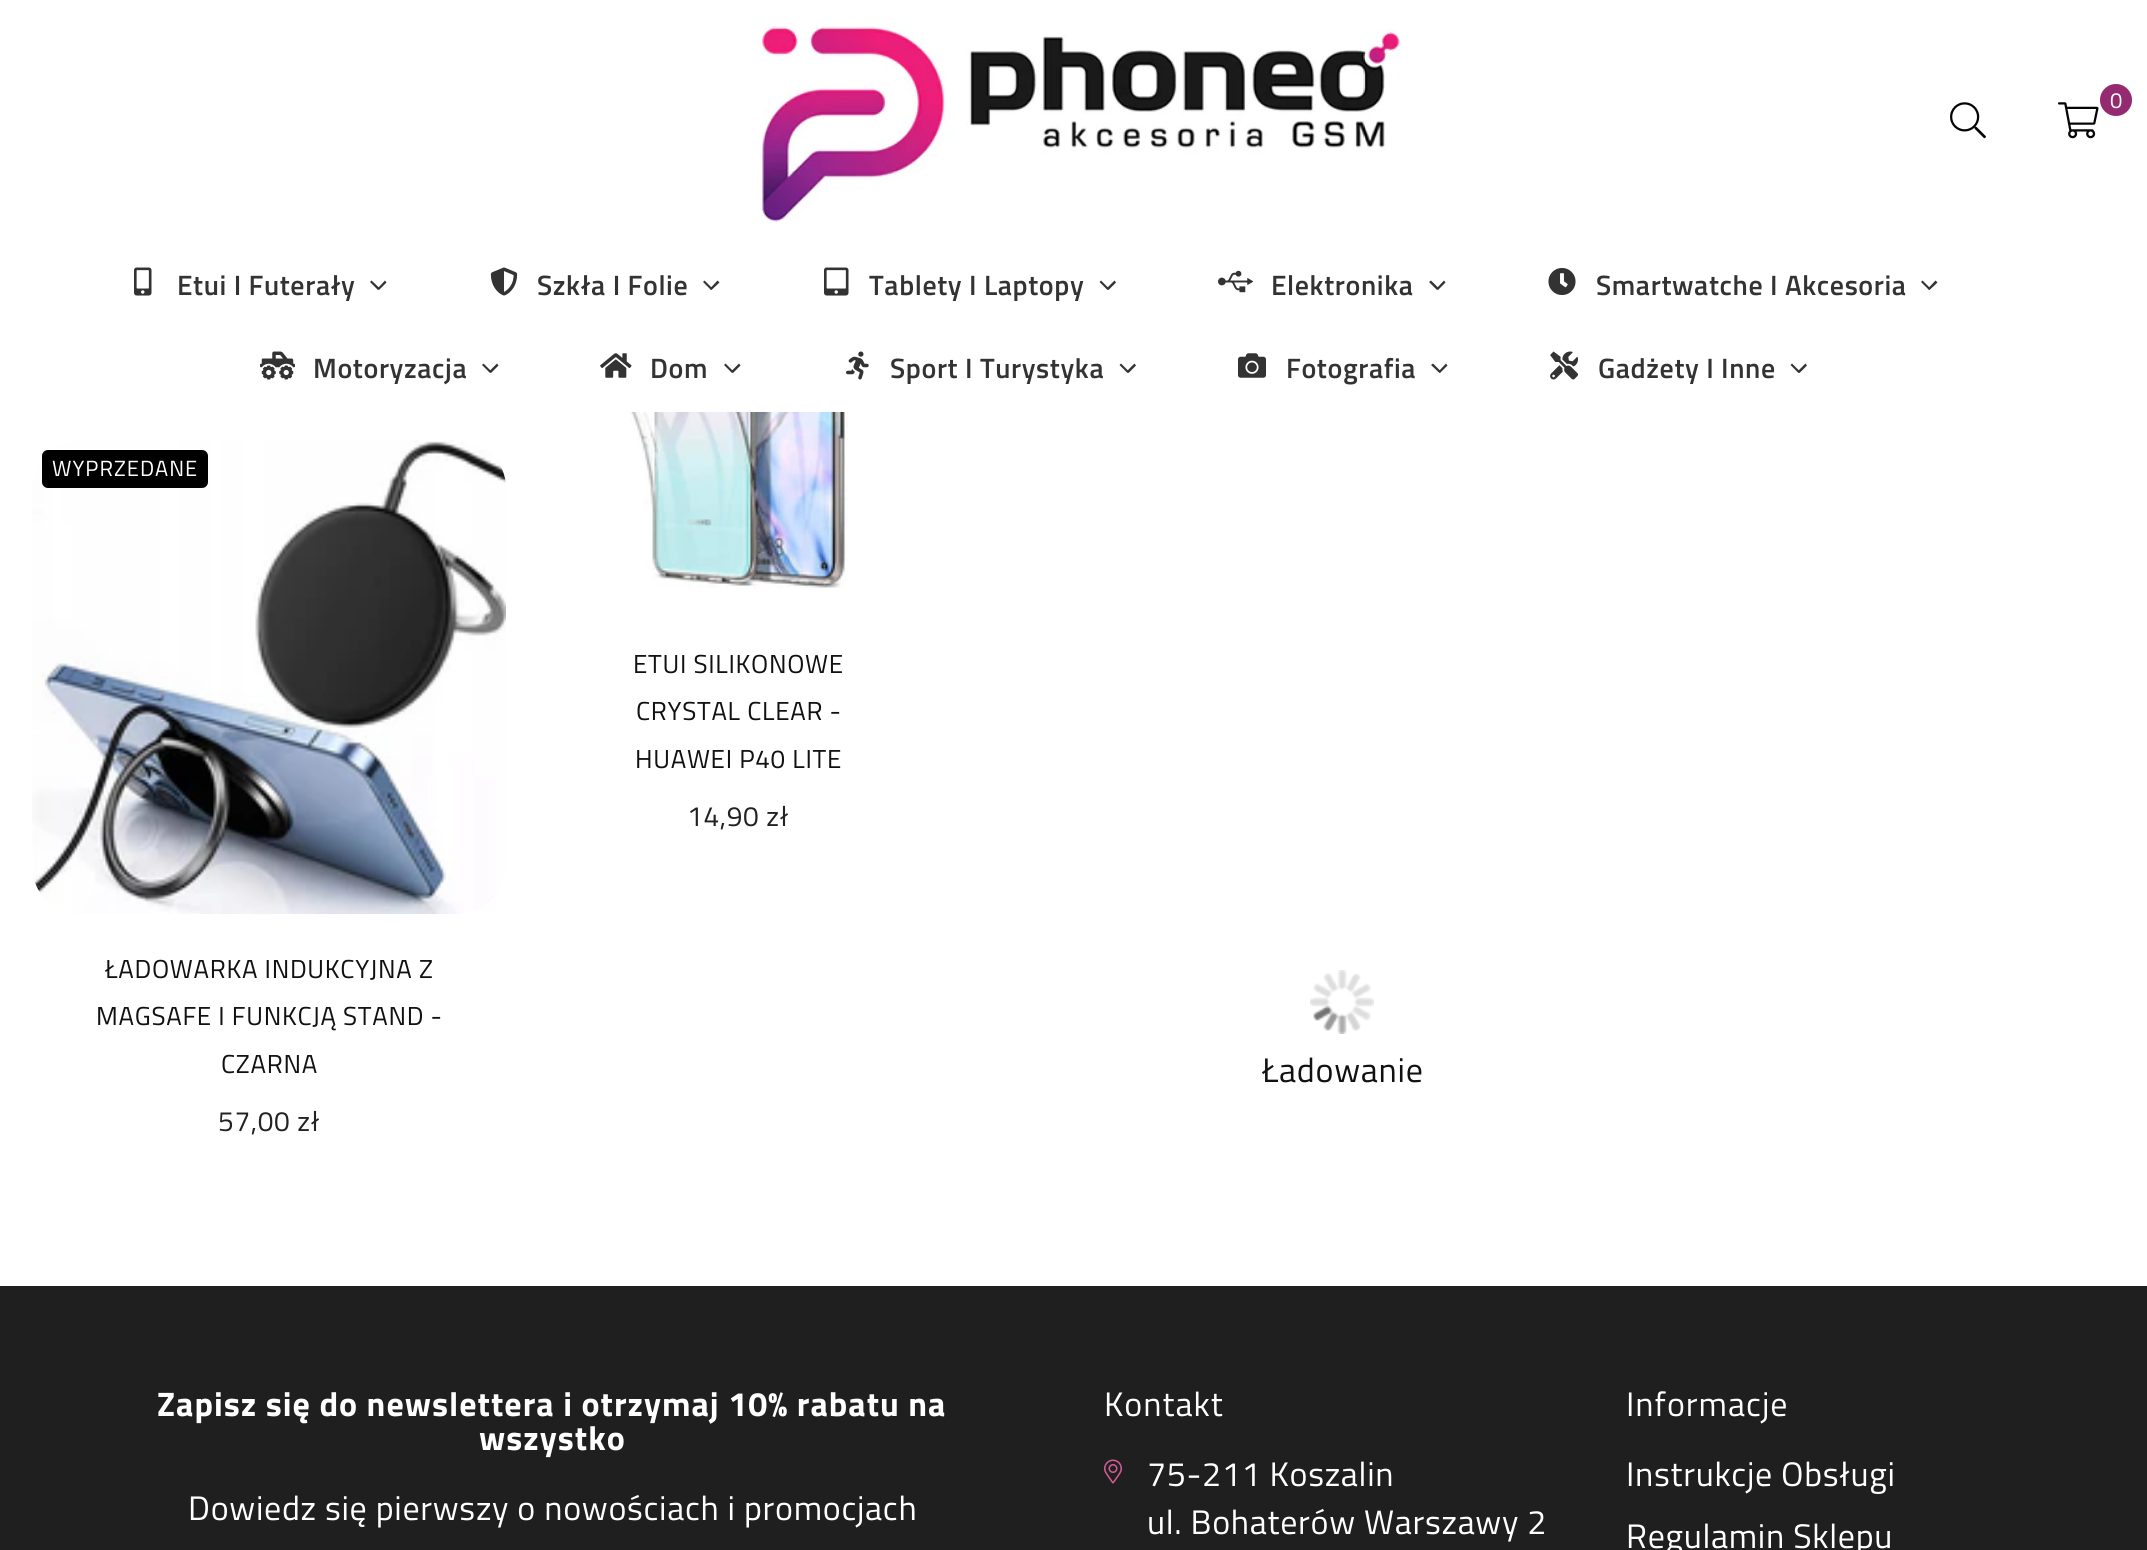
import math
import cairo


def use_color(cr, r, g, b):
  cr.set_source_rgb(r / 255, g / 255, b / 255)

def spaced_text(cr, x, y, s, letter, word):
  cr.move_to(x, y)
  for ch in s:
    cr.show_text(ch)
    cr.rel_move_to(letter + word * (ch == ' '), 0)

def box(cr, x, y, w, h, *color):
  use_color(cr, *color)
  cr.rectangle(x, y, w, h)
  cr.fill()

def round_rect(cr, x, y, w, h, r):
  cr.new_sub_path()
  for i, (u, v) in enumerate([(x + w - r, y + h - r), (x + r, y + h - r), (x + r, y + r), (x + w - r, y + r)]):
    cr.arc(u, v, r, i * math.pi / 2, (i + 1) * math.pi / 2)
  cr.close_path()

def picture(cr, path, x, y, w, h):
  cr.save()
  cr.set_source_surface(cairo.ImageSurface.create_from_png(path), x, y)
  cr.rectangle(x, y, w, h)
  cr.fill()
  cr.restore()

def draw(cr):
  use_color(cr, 255, 255, 255)
  cr.paint()
  picture(cr, "img_01.png", 759, 25, 642, 197)
  picture(cr, "img_02.png", 1950, 102, 36, 37)
  picture(cr, "img_03.png", 2058, 102, 41, 37)
  use_color(cr, 148, 42, 111)
  cr.arc(2116, 100, 16, 0, 2 * math.pi)
  cr.fill()
  picture(cr, "img_04.png", 134, 267, 18, 29)
  use_color(cr, 51, 51, 51)
  cr.new_path()
  cr.move_to(385, 280.5)
  cr.line_to(386.5, 282.5)
  cr.line_to(379, 290)
  cr.line_to(377.5, 288.5)
  cr.close_path()
  cr.fill()
  cr.new_path()
  cr.move_to(371.5, 280.5)
  cr.line_to(380, 288.5)
  cr.line_to(378, 290)
  cr.line_to(370, 282)
  cr.close_path()
  cr.fill()
  picture(cr, "img_05.png", 490, 267, 28, 29)
  cr.new_path()
  cr.move_to(717.5, 280.5)
  cr.line_to(719.5, 282.5)
  cr.line_to(711.5, 290)
  cr.line_to(710, 288.5)
  cr.close_path()
  cr.fill()
  cr.new_path()
  cr.move_to(704.5, 280.5)
  cr.line_to(712.5, 288.5)
  cr.line_to(711, 290)
  cr.line_to(703, 282)
  cr.close_path()
  cr.fill()
  picture(cr, "img_06.png", 824, 267, 25, 29)
  cr.new_path()
  cr.move_to(1114.5, 280.5)
  cr.line_to(1116, 282.5)
  cr.line_to(1108.5, 290)
  cr.line_to(1106.5, 288.5)
  cr.close_path()
  cr.fill()
  cr.new_path()
  cr.move_to(1101, 280.5)
  cr.line_to(1109, 288.5)
  cr.line_to(1107.5, 290)
  cr.line_to(1099.5, 282)
  cr.close_path()
  cr.fill()
  picture(cr, "img_07.png", 1218, 270, 36, 23)
  cr.new_path()
  cr.move_to(1444, 280.5)
  cr.line_to(1445.5, 282.5)
  cr.line_to(1438, 290)
  cr.line_to(1436.5, 288.5)
  cr.close_path()
  cr.fill()
  cr.new_path()
  cr.move_to(1431, 280.5)
  cr.line_to(1439, 288.5)
  cr.line_to(1437, 290)
  cr.line_to(1429, 282)
  cr.close_path()
  cr.fill()
  picture(cr, "img_08.png", 1548, 268, 28, 27)
  cr.new_path()
  cr.move_to(1935.5, 280.5)
  cr.line_to(1937.5, 282.5)
  cr.line_to(1929.5, 290)
  cr.line_to(1928, 288.5)
  cr.close_path()
  cr.fill()
  cr.new_path()
  cr.move_to(1922.5, 280.5)
  cr.line_to(1930.5, 288.5)
  cr.line_to(1929, 290)
  cr.line_to(1921, 282)
  cr.close_path()
  cr.fill()
  picture(cr, "img_09.png", 260, 351, 35, 29)
  cr.new_path()
  cr.move_to(497, 363.5)
  cr.line_to(498.5, 365.5)
  cr.line_to(491, 373)
  cr.line_to(489, 371.5)
  cr.close_path()
  cr.fill()
  cr.new_path()
  cr.move_to(483.5, 363.5)
  cr.line_to(491.5, 371.5)
  cr.line_to(490, 373)
  cr.line_to(482, 365)
  cr.close_path()
  cr.fill()
  picture(cr, "img_10.png", 600, 353, 32, 25)
  cr.new_path()
  cr.move_to(739, 363.5)
  cr.line_to(740.5, 365.5)
  cr.line_to(733, 373)
  cr.line_to(731, 371.5)
  cr.close_path()
  cr.fill()
  cr.new_path()
  cr.move_to(725.5, 363.5)
  cr.line_to(733.5, 371.5)
  cr.line_to(732, 373)
  cr.line_to(724, 365)
  cr.close_path()
  cr.fill()
  picture(cr, "img_11.png", 846, 351, 23, 29)
  cr.new_path()
  cr.move_to(1134.5, 363.5)
  cr.line_to(1136, 365.5)
  cr.line_to(1128.5, 373)
  cr.line_to(1126.5, 371.5)
  cr.close_path()
  cr.fill()
  cr.new_path()
  cr.move_to(1121, 363.5)
  cr.line_to(1129, 371.5)
  cr.line_to(1127.5, 373)
  cr.line_to(1119.5, 365)
  cr.close_path()
  cr.fill()
  picture(cr, "img_12.png", 1238, 353, 28, 25)
  cr.new_path()
  cr.move_to(1446, 363.5)
  cr.line_to(1447.5, 365.5)
  cr.line_to(1440, 373)
  cr.line_to(1438.5, 371.5)
  cr.close_path()
  cr.fill()
  cr.new_path()
  cr.move_to(1433, 363.5)
  cr.line_to(1441, 371.5)
  cr.line_to(1439.5, 373)
  cr.line_to(1431, 365)
  cr.close_path()
  cr.fill()
  picture(cr, "img_13.png", 1550, 351, 29, 29)
  cr.new_path()
  cr.move_to(1805.5, 363.5)
  cr.line_to(1807, 365.5)
  cr.line_to(1799.5, 373)
  cr.line_to(1797.5, 371.5)
  cr.close_path()
  cr.fill()
  cr.new_path()
  cr.move_to(1792, 363.5)
  cr.line_to(1800, 371.5)
  cr.line_to(1798.5, 373)
  cr.line_to(1790.5, 365)
  cr.close_path()
  cr.fill()
  picture(cr, "img_14.png", 32, 440, 474, 474)
  use_color(cr, 0, 0, 0)
  round_rect(cr, 42, 450, 166, 38, 6)
  cr.fill()
  picture(cr, "img_15.png", 585, 412, 263, 176)
  picture(cr, "img_16.png", 1310, 970, 64, 64)
  box(cr, 0, 1286, 2147, 264, 31, 31, 31)
  picture(cr, "img_17.png", 1104, 1459, 18, 25)
  cr.select_font_face("Titillium Web")
  cr.set_font_size(22)
  use_color(cr, 255, 255, 255)
  spaced_text(cr, 2110, 108, "0", 0.7, 0)
  cr.select_font_face("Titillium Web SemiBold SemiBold")
  cr.set_font_size(28)
  use_color(cr, 51, 51, 51)
  spaced_text(cr, 177, 295, "Etui I Futerały", 0.6, 0)
  spaced_text(cr, 537, 295, "Szkła I Folie", 0.6, 0)
  spaced_text(cr, 869, 295, "Tablety I Laptopy", 0.6, 0)
  spaced_text(cr, 1271, 295, "Elektronika", 0.6, 0)
  spaced_text(cr, 1596, 295, "Smartwatche I Akcesoria", 0.6, 0)
  spaced_text(cr, 313, 378, "Motoryzacja", 0.6, 0)
  spaced_text(cr, 650, 378, "Dom", 0.6, 0)
  spaced_text(cr, 890, 378, "Sport I Turystyka", 0.6, 0)
  spaced_text(cr, 1286, 378, "Fotografia", 0.6, 0)
  spaced_text(cr, 1598, 378, "Gadżety I Inne", 0.6, 0)
  cr.select_font_face("Titillium Web")
  cr.set_font_size(22)
  use_color(cr, 255, 255, 255)
  spaced_text(cr, 52, 476, "WYPRZEDANE", 1, 0)
  cr.set_font_size(26)
  use_color(cr, 17, 17, 17)
  spaced_text(cr, 105, 978, "ŁADOWARKA INDUKCYJNA Z", 0.7, 0)
  spaced_text(cr, 96, 1025, "MAGSAFE I FUNKCJĄ STAND -", 0.7, 0)
  spaced_text(cr, 221, 1073, "CZARNA", 0.7, 0)
  cr.set_font_size(28)
  use_color(cr, 34, 34, 34)
  spaced_text(cr, 218, 1131, "57,00 zł", 0.7, 0)
  cr.set_font_size(26)
  use_color(cr, 17, 17, 17)
  spaced_text(cr, 633, 673, "ETUI SILIKONOWE", 0.7, 0)
  spaced_text(cr, 636, 720, "CRYSTAL CLEAR -", 0.7, 0)
  spaced_text(cr, 635, 768, "HUAWEI P40 LITE", 0.7, 0)
  cr.set_font_size(28)
  use_color(cr, 34, 34, 34)
  spaced_text(cr, 687, 826, "14,90 zł", 0.7, 0)
  cr.set_font_size(34)
  use_color(cr, 17, 17, 17)
  spaced_text(cr, 1262, 1082, "Ładowanie", 0.7, 0)
  cr.select_font_face("Titillium Web", cairo.FONT_SLANT_NORMAL, cairo.FONT_WEIGHT_BOLD)
  use_color(cr, 255, 255, 255)
  spaced_text(cr, 157, 1416, "Zapisz się do newslettera i otrzymaj 10% rabatu na", 1, 0)
  spaced_text(cr, 479, 1450, "wszystko", 1, 0)
  cr.select_font_face("Titillium Web")
  spaced_text(cr, 188, 1520, "Dowiedz się pierwszy o nowościach i promocjach", 0.7, 0)
  spaced_text(cr, 1104, 1416, "Kontakt", 1, 0)
  spaced_text(cr, 1147, 1486, "75-211 Koszalin", 0.7, 0)
  spaced_text(cr, 1147, 1534, "ul. Bohaterów Warszawy 2", 0.7, 0)
  spaced_text(cr, 1626, 1416, "Informacje", 1, 0)
  spaced_text(cr, 1626, 1486, "Instrukcje Obsługi", 0.7, 0)
  spaced_text(cr, 1626, 1548, "Regulamin Sklepu", 0.7, 0)


surface = cairo.ImageSurface(cairo.FORMAT_RGB24, 2147, 1550)
cr = cairo.Context(surface)
options = cairo.FontOptions()
options.set_hint_metrics(cairo.HINT_METRICS_OFF)
options.set_hint_style(cairo.HINT_STYLE_NONE)
cr.set_font_options(options)
cr.set_miter_limit(4)
draw(cr)
surface.write_to_png("out.png")
